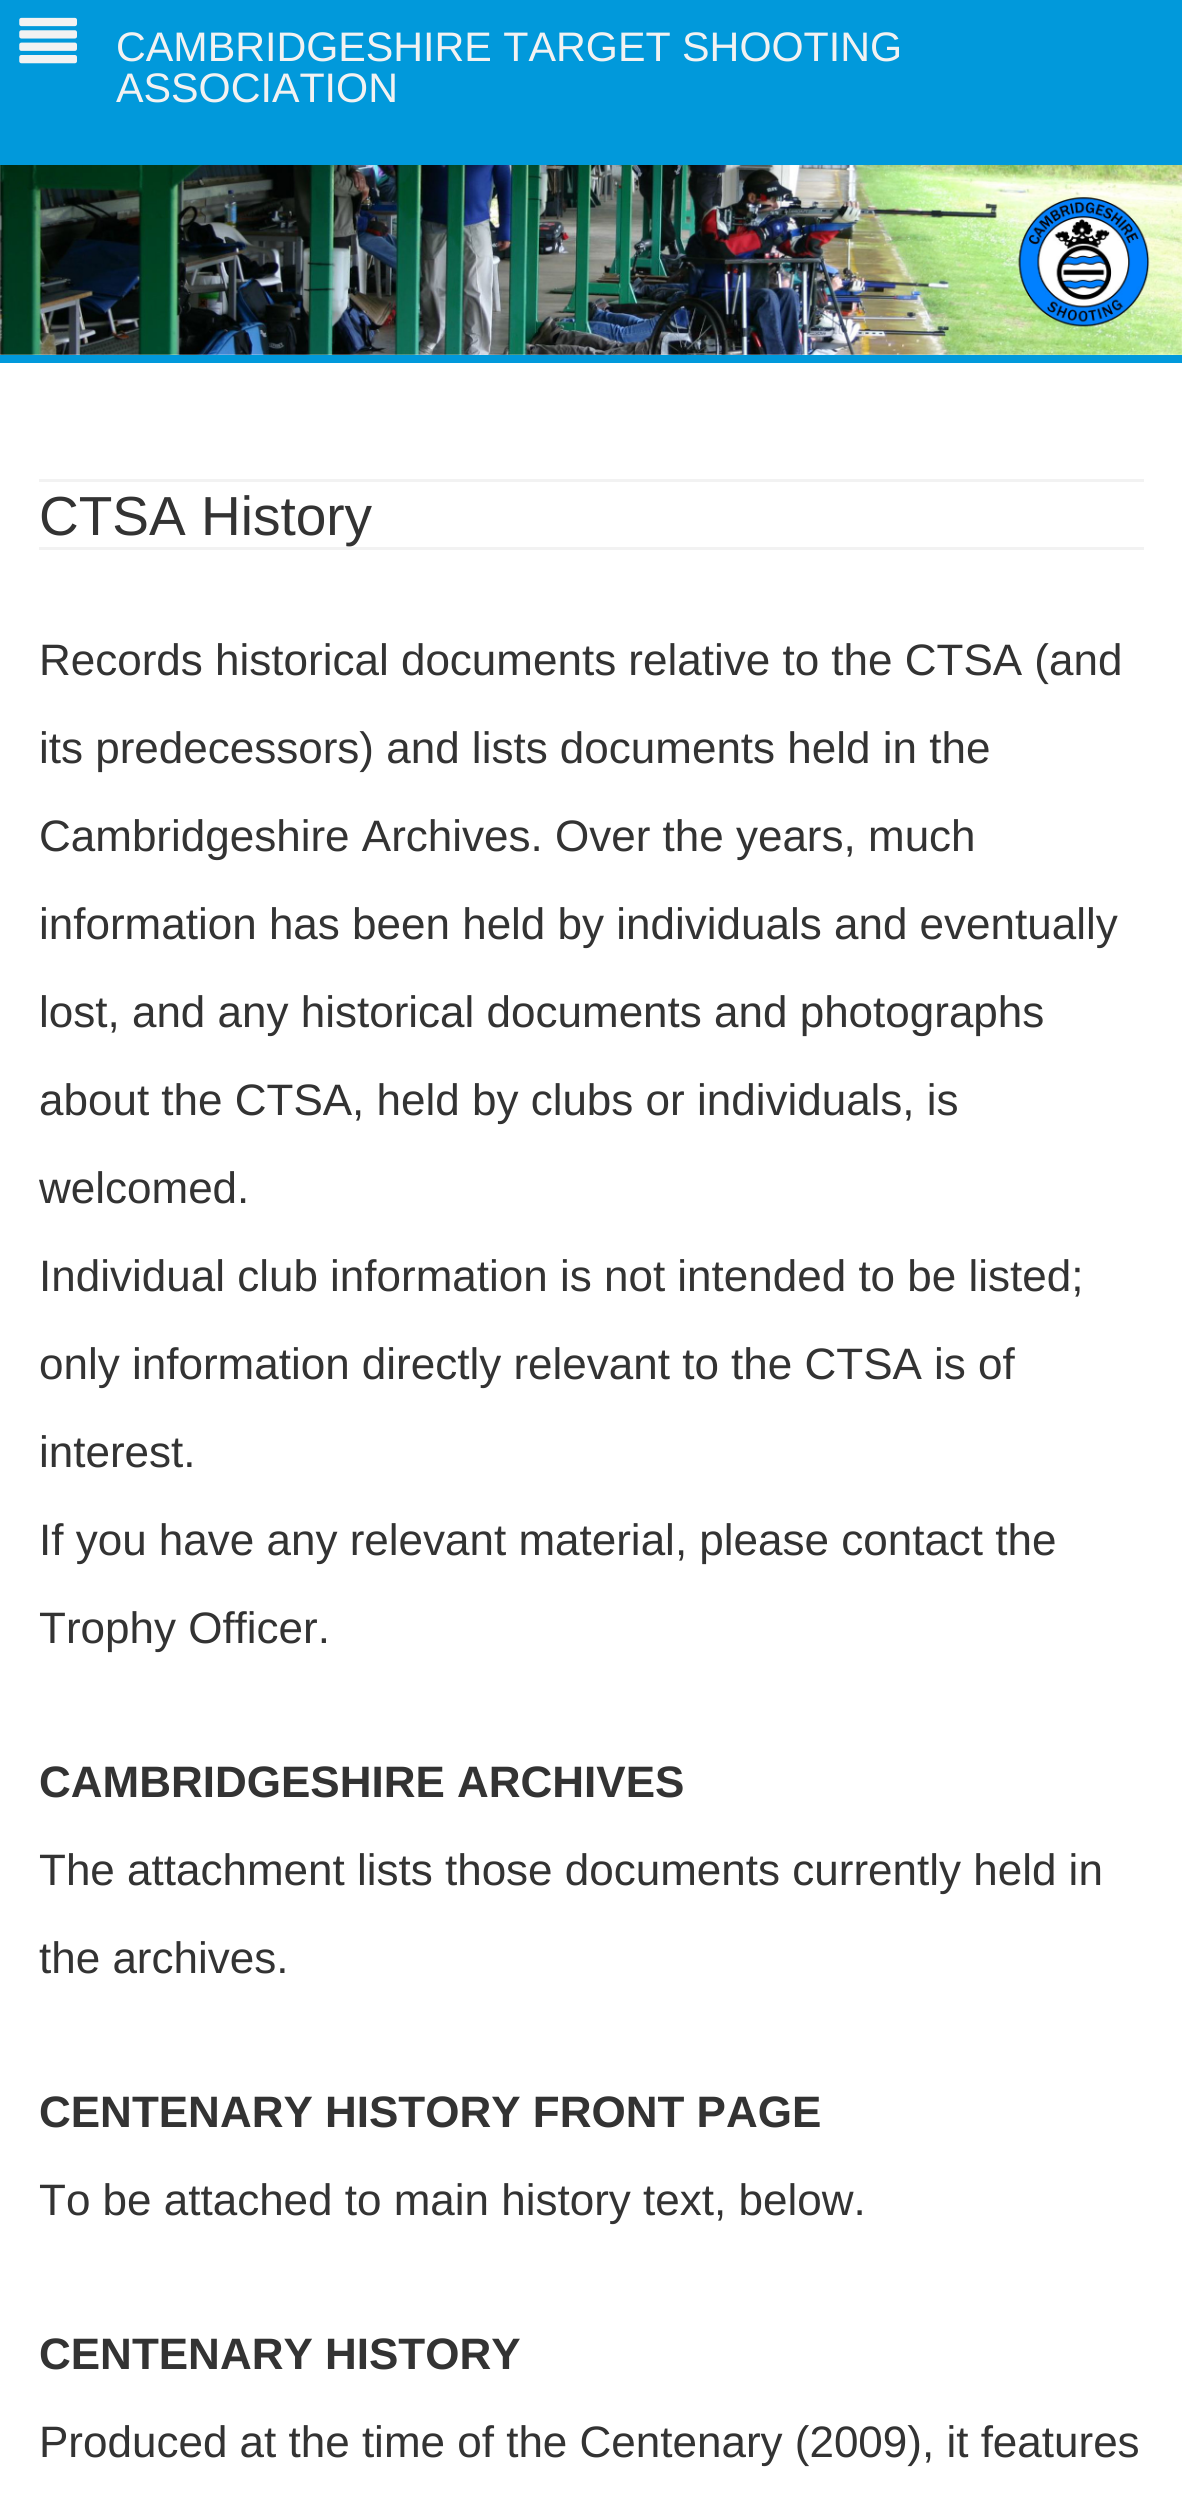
import math
import cairo


def use_color(cr, r, g, b):
  cr.set_source_rgb(r / 255, g / 255, b / 255)

def text(cr, x, y, s, family, size, color, bold=False, italic=False):
  cr.select_font_face(family, cairo.FONT_SLANT_ITALIC if italic else cairo.FONT_SLANT_NORMAL, cairo.FONT_WEIGHT_BOLD if bold else cairo.FONT_WEIGHT_NORMAL)
  cr.set_font_size(size)
  use_color(cr, *color)
  cr.move_to(x, y)
  cr.show_text(s)

def box(cr, x, y, w, h, *color):
  use_color(cr, *color)
  cr.rectangle(x, y, w, h)
  cr.fill()

def picture(cr, path, x, y, w, h):
  cr.save()
  cr.set_source_surface(cairo.ImageSurface.create_from_png(path), x, y)
  cr.rectangle(x, y, w, h)
  cr.fill()
  cr.restore()

def draw(cr):
  use_color(cr, 255, 255, 255)
  cr.paint()
  box(cr, 0, 0, 1182, 165, 1, 153, 219)
  picture(cr, "img_01.png", 19, 17, 58, 47)
  picture(cr, "img_02.png", 0, 165, 1182, 190)
  box(cr, 0, 355, 1182, 8, 1, 153, 219)
  box(cr, 39, 479, 1105, 3, 242, 242, 242)
  box(cr, 39, 547, 1105, 3, 242, 242, 242)
  text(cr, 116, 61, "CAMBRIDGESHIRE TARGET SHOOTING", "Arimo", 41.25, (242, 242, 242))
  text(cr, 116, 102, "ASSOCIATION", "Arimo", 41.25, (242, 242, 242))
  text(cr, 39, 535, "CTSA History", "Arimo", 55, (51, 51, 51))
  text(cr, 39, 675, "Records historical documents relative to the CTSA (and", "Arimo", 44, (51, 51, 51))
  text(cr, 39, 763, "its predecessors) and lists documents held in the", "Arimo", 44, (51, 51, 51))
  text(cr, 39, 851, "Cambridgeshire Archives. Over the years, much", "Arimo", 44, (51, 51, 51))
  text(cr, 39, 939, "information has been held by individuals and eventually", "Arimo", 44, (51, 51, 51))
  text(cr, 39, 1027, "lost, and any historical documents and photographs", "Arimo", 44, (51, 51, 51))
  text(cr, 39, 1115, "about the CTSA, held by clubs or individuals, is", "Arimo", 44, (51, 51, 51))
  text(cr, 39, 1203, "welcomed.", "Arimo", 44, (51, 51, 51))
  text(cr, 39, 1291, "Individual club information is not intended to be listed;", "Arimo", 44, (51, 51, 51))
  text(cr, 39, 1379, "only information directly relevant to the CTSA is of", "Arimo", 44, (51, 51, 51))
  text(cr, 39, 1467, "interest.", "Arimo", 44, (51, 51, 51))
  text(cr, 39, 1555, "If you have any relevant material, please contact the", "Arimo", 44, (51, 51, 51))
  text(cr, 39, 1643, "Trophy Officer.", "Arimo", 44, (51, 51, 51))
  text(cr, 39, 1797, "CAMBRIDGESHIRE ARCHIVES", "Arimo", 44, (51, 51, 51), bold=True)
  text(cr, 39, 1885, "The attachment lists those documents currently held in", "Arimo", 44, (51, 51, 51))
  text(cr, 39, 1973, "the archives.", "Arimo", 44, (51, 51, 51))
  text(cr, 39, 2127, "CENTENARY HISTORY FRONT PAGE", "Arimo", 44, (51, 51, 51), bold=True)
  text(cr, 39, 2215, "To be attached to main history text, below.", "Arimo", 44, (51, 51, 51))
  text(cr, 39, 2369, "CENTENARY HISTORY", "Arimo", 44, (51, 51, 51), bold=True)
  text(cr, 39, 2457, "Produced at the time of the Centenary (2009), it features", "Arimo", 44, (51, 51, 51))


surface = cairo.ImageSurface(cairo.FORMAT_RGB24, 1182, 2511)
cr = cairo.Context(surface)
options = cairo.FontOptions()
options.set_hint_metrics(cairo.HINT_METRICS_OFF)
options.set_hint_style(cairo.HINT_STYLE_NONE)
cr.set_font_options(options)
cr.set_miter_limit(4)
draw(cr)
surface.write_to_png("out.png")
